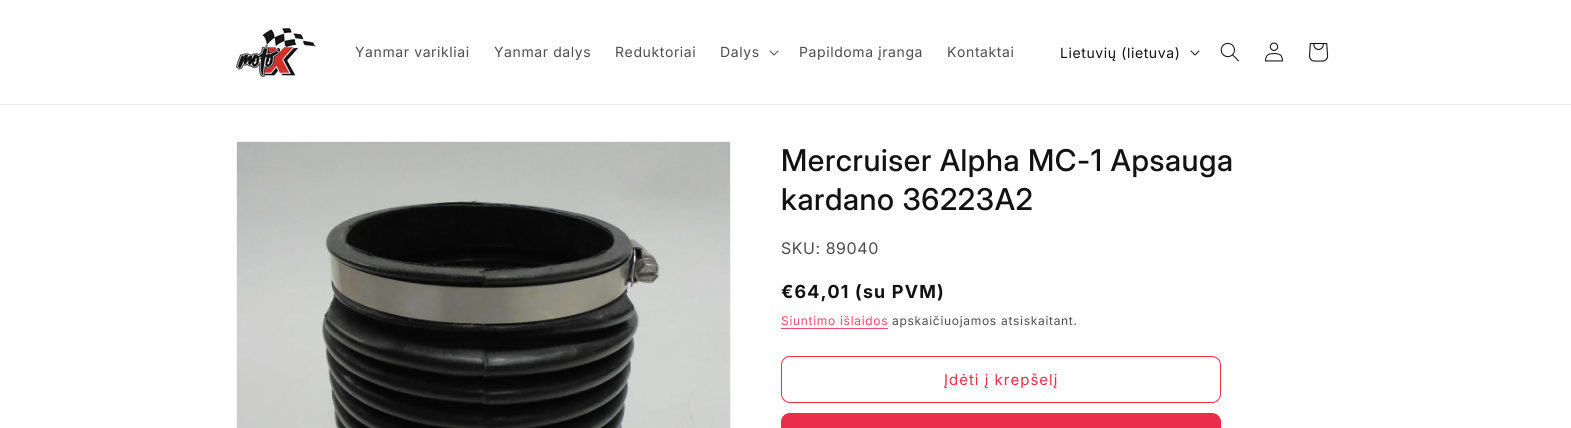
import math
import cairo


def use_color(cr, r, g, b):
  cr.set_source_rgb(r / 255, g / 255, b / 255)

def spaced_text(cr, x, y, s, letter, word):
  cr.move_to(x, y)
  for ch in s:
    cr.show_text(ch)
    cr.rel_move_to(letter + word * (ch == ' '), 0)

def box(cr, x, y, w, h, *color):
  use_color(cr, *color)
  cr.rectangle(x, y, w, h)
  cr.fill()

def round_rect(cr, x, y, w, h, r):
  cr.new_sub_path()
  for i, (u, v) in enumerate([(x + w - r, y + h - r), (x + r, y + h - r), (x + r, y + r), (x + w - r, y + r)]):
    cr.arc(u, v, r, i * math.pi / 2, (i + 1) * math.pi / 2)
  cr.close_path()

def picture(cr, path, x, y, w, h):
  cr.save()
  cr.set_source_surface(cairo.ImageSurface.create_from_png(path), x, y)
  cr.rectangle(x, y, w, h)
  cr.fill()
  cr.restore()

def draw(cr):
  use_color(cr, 255, 255, 255)
  cr.paint()
  box(cr, 0, 104, 1571, 1, 236, 236, 236)
  picture(cr, "img_01.png", 236, 28, 80, 49)
  picture(cr, "img_02.png", 769, 50, 10, 6)
  picture(cr, "img_03.png", 1190, 50, 10, 6)
  picture(cr, "img_04.png", 1220, 42, 19, 20)
  picture(cr, "img_05.png", 1265, 42, 18, 20)
  picture(cr, "img_06.png", 1309, 43, 20, 19)
  cr.rectangle(236.5, 141.5, 494, 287)
  use_color(cr, 243, 243, 243)
  cr.set_line_width(1)
  cr.stroke()
  picture(cr, "img_07.png", 237, 142, 493, 286)
  box(cr, 781, 328, 107, 1, 237, 77, 100)
  round_rect(cr, 781.5, 356.5, 439, 46, 8.5)
  use_color(cr, 234, 46, 73)
  cr.stroke()
  round_rect(cr, 781.5, 413.5, 439, 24, 8.5)
  cr.fill_preserve()
  cr.stroke()
  cr.select_font_face("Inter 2")
  cr.set_font_size(14)
  use_color(cr, 77, 77, 77)
  spaced_text(cr, 355, 57, "Yanmar varikliai", 0.6, 0)
  spaced_text(cr, 494, 57, "Yanmar dalys", 0.6, 0)
  spaced_text(cr, 615, 57, "Reduktoriai", 0.6, 0)
  spaced_text(cr, 720, 57, "Dalys", 0.6, 0)
  spaced_text(cr, 799, 57, "Papildoma įranga", 0.6, 0)
  spaced_text(cr, 947, 57, "Kontaktai", 0.6, 0)
  use_color(cr, 18, 18, 18)
  spaced_text(cr, 1060, 58, "Lietuvių (lietuva)", 0.6, 0)
  cr.select_font_face("Inter Medium")
  cr.set_font_size(30)
  spaced_text(cr, 781, 171, "Mercruiser Alpha MC-1 Apsauga", 0.6, 0)
  spaced_text(cr, 781, 210, "kardano 36223A2", 0.6, 0)
  cr.select_font_face("Inter")
  cr.set_font_size(16)
  use_color(cr, 77, 77, 77)
  spaced_text(cr, 781, 254, "SKU: 89040", 0.6, 0)
  cr.select_font_face("Inter", cairo.FONT_SLANT_NORMAL, cairo.FONT_WEIGHT_BOLD)
  cr.set_font_size(18)
  use_color(cr, 18, 18, 18)
  spaced_text(cr, 781, 298, "€64,01 (su PVM)", 1.25, 0)
  cr.select_font_face("Inter 2")
  cr.set_font_size(12)
  use_color(cr, 237, 77, 100)
  spaced_text(cr, 781, 325, "Siuntimo išlaidos", 0.7, 0)
  use_color(cr, 77, 77, 77)
  spaced_text(cr, 892, 325, "apskaičiuojamos atsiskaitant.", 0.7, 0)
  cr.set_font_size(15)
  use_color(cr, 234, 46, 73)
  spaced_text(cr, 944, 385, "Įdėti į krepšelį", 1, 0)


surface = cairo.ImageSurface(cairo.FORMAT_RGB24, 1571, 428)
cr = cairo.Context(surface)
options = cairo.FontOptions()
options.set_hint_metrics(cairo.HINT_METRICS_OFF)
options.set_hint_style(cairo.HINT_STYLE_NONE)
cr.set_font_options(options)
cr.set_miter_limit(4)
draw(cr)
surface.write_to_png("out.png")
